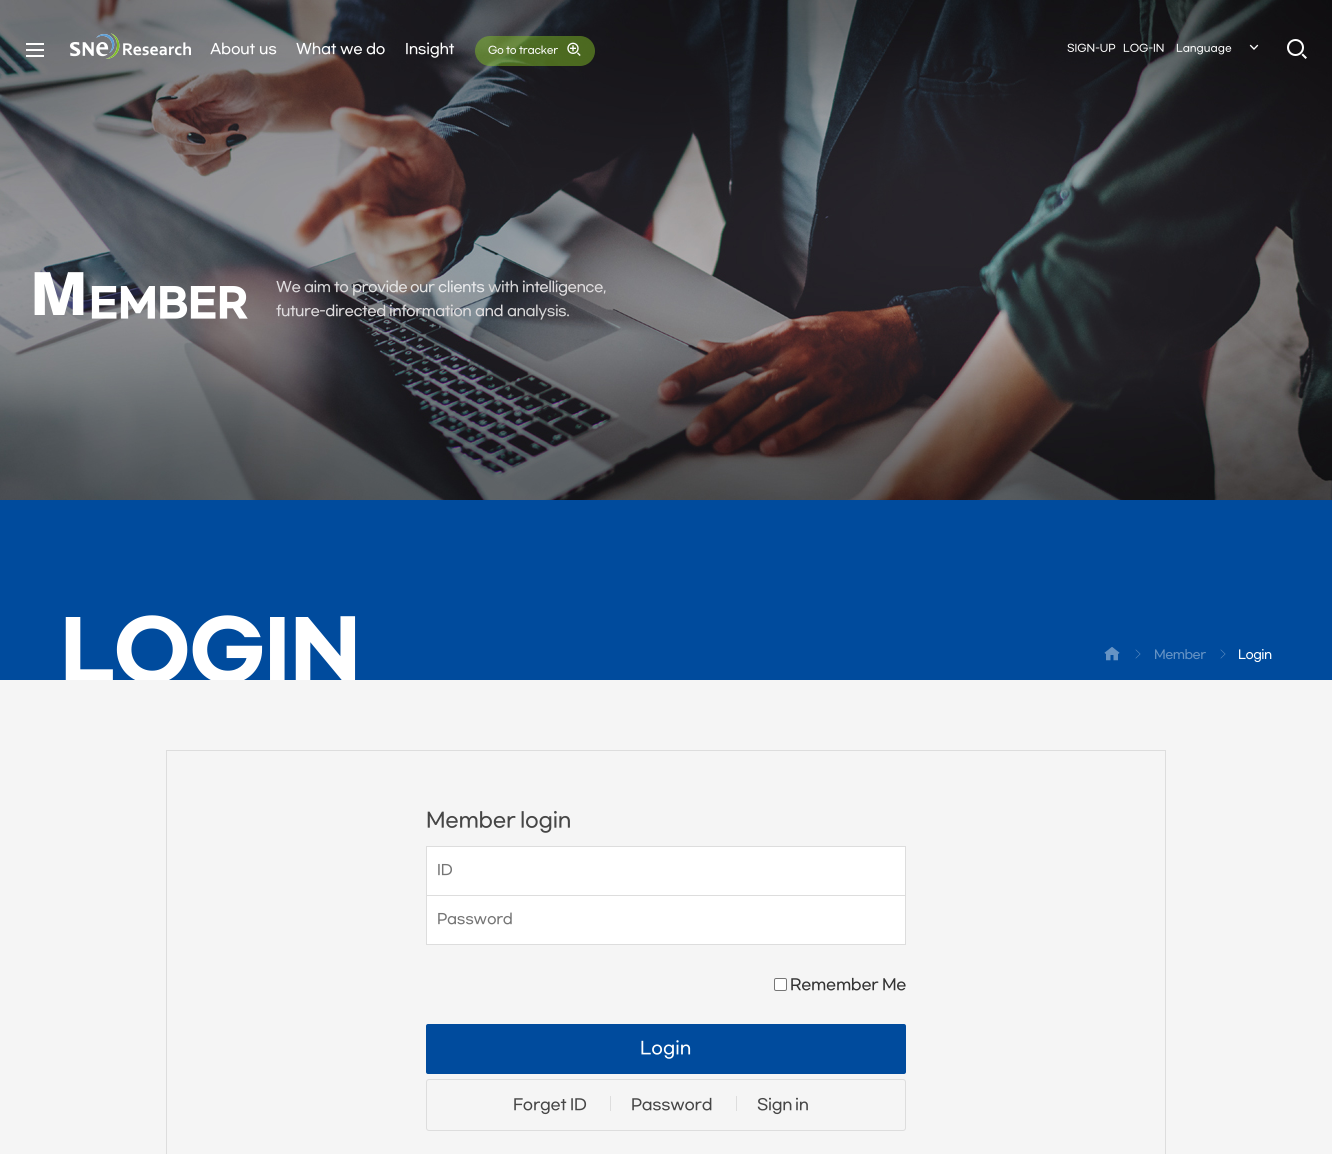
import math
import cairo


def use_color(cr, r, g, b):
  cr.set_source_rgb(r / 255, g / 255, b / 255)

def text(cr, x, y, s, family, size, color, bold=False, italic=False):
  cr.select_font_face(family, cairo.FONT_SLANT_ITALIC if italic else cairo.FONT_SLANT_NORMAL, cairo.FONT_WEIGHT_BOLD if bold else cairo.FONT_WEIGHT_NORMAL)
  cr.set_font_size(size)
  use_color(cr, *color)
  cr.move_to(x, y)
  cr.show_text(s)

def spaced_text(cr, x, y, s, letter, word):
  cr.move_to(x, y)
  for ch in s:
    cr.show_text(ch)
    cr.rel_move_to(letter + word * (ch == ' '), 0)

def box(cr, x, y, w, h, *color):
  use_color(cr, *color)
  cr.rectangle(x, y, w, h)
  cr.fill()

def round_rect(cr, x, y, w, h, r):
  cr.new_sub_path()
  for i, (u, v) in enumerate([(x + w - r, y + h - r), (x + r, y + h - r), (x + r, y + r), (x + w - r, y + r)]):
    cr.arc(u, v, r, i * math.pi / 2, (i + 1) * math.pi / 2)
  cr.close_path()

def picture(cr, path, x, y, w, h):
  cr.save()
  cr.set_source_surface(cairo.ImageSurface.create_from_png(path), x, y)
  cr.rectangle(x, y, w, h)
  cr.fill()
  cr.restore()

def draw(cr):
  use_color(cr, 245, 245, 245)
  cr.paint()
  picture(cr, "img_06.png", 0, 0, 1332, 500)
  cr.set_source_rgba(0.502, 0.741, 0.145, 0.5)
  round_rect(cr, 475, 36, 120, 30, 15)
  cr.fill()
  picture(cr, "img_01.png", 567, 42, 14, 14)
  picture(cr, "img_02.png", 26, 43, 18, 14)
  picture(cr, "img_03.png", 70, 33, 121, 26)
  picture(cr, "img_04.png", 1249, 44, 10, 6)
  picture(cr, "img_05.png", 1287, 39, 20, 20)
  box(cr, 0, 500, 1332, 180, 0, 75, 157)
  picture(cr, "img_07.png", 1104, 647, 16, 14)
  picture(cr, "img_08.png", 1135, 649, 6, 10)
  picture(cr, "img_08.png", 1220, 649, 6, 10)
  cr.rectangle(166.5, 750.5, 999, 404)
  use_color(cr, 221, 221, 221)
  cr.set_line_width(1)
  cr.stroke()
  use_color(cr, 255, 255, 255)
  cr.rectangle(426.5, 846.5, 479, 49)
  cr.fill_preserve()
  use_color(cr, 221, 221, 221)
  cr.stroke()
  use_color(cr, 255, 255, 255)
  cr.rectangle(426.5, 895.5, 479, 49)
  cr.fill_preserve()
  use_color(cr, 221, 221, 221)
  cr.stroke()
  use_color(cr, 255, 255, 255)
  round_rect(cr, 774.5, 978.5, 12, 12, 1.5)
  cr.fill_preserve()
  use_color(cr, 118, 118, 118)
  cr.stroke()
  use_color(cr, 0, 75, 157)
  round_rect(cr, 426, 1024, 480, 50, 2)
  cr.fill()
  round_rect(cr, 426.5, 1079.5, 479, 51, 2.5)
  use_color(cr, 221, 221, 221)
  cr.stroke()
  box(cr, 610, 1096, 1, 15, 221, 221, 221)
  box(cr, 736, 1096, 1, 15, 221, 221, 221)
  cr.select_font_face("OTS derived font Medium")
  cr.set_font_size(14)
  use_color(cr, 255, 255, 255)
  spaced_text(cr, 210, 53, "About", -0.25, 0)
  spaced_text(cr, 259, 53, "us", -0.25, 0)
  spaced_text(cr, 296, 53, "What", -0.25, 0)
  spaced_text(cr, 340, 53, "we", -0.25, 0)
  spaced_text(cr, 366, 53, "do", -0.25, 0)
  spaced_text(cr, 405, 53, "Insight", -0.25, 0)
  cr.set_font_size(10)
  spaced_text(cr, 488, 53, "Go", -0.25, 0)
  spaced_text(cr, 506, 53, "to", -0.25, 0)
  spaced_text(cr, 519, 53, "tracker", -0.25, 0)
  text(cr, 1067, 51, "SIGN-UP", "OTS derived font Medium", 10, (255, 255, 255))
  text(cr, 1123, 51, "LOG-IN", "OTS derived font Medium", 10, (255, 255, 255))
  text(cr, 1176, 51, "Language", "OTS derived font Medium", 10, (255, 255, 255))
  cr.select_font_face("Noto Sans Black")
  cr.set_font_size(60)
  spaced_text(cr, 30, 315, "M", -0.5, 0)
  cr.select_font_face("OTS derived font", cairo.FONT_SLANT_NORMAL, cairo.FONT_WEIGHT_BOLD)
  cr.set_font_size(40)
  spaced_text(cr, 89, 315, "EMBER", -0.5, 0)
  cr.select_font_face("OTS derived font Medium")
  cr.set_font_size(14)
  use_color(cr, 223, 220, 222)
  spaced_text(cr, 276, 291, "We", -0.5, 0)
  use_color(cr, 214, 214, 215)
  spaced_text(cr, 304, 291, "aim", -0.5, 0)
  use_color(cr, 223, 220, 222)
  spaced_text(cr, 334, 291, "to", -0.5, 0)
  use_color(cr, 227, 227, 227)
  spaced_text(cr, 352, 291, "provide", -0.5, 0)
  spaced_text(cr, 410, 291, "our", -0.5, 0)
  use_color(cr, 233, 234, 236)
  spaced_text(cr, 438, 291, "clients", -0.5, 0)
  use_color(cr, 214, 214, 215)
  spaced_text(cr, 488, 291, "with", -0.5, 0)
  use_color(cr, 223, 220, 222)
  spaced_text(cr, 522, 291, "intelligence,", -0.5, 0)
  spaced_text(cr, 276, 315, "future-directed", -0.5, 0)
  spaced_text(cr, 389, 315, "information", -0.5, 0)
  spaced_text(cr, 475, 315, "and", -0.5, 0)
  use_color(cr, 214, 214, 215)
  spaced_text(cr, 507, 315, "analysis.", -0.5, 0)
  cr.save()
  cr.rectangle(0, 500, 1332, 180)
  cr.clip()
  cr.select_font_face("OTS derived font", cairo.FONT_SLANT_NORMAL, cairo.FONT_WEIGHT_BOLD)
  cr.set_font_size(80)
  use_color(cr, 255, 255, 255)
  spaced_text(cr, 60, 675, "LOGIN", -0.5, 0)
  cr.restore()
  cr.set_font_size(12)
  use_color(cr, 102, 147, 196)
  spaced_text(cr, 1154, 658, "Member", -0.5, 0)
  use_color(cr, 255, 255, 255)
  spaced_text(cr, 1238, 658, "Login", -0.5, 0)
  cr.set_font_size(20)
  use_color(cr, 70, 70, 70)
  spaced_text(cr, 426, 826, "Member", -0.25, 0)
  spaced_text(cr, 520, 826, "login", -0.25, 0)
  cr.set_font_size(14)
  use_color(cr, 117, 117, 117)
  spaced_text(cr, 437, 874, "ID", -0.25, 0)
  spaced_text(cr, 437, 923, "Password", -0.25, 0)
  cr.set_font_size(15)
  use_color(cr, 51, 51, 51)
  spaced_text(cr, 790, 989, "Remember", -0.25, 0)
  spaced_text(cr, 882, 989, "Me", -0.25, 0)
  text(cr, 640, 1053, "Login", "OTS derived font Medium", 17, (255, 255, 255))
  cr.set_font_size(15)
  use_color(cr, 70, 70, 70)
  spaced_text(cr, 513, 1109, "Forget", -0.25, 0)
  spaced_text(cr, 570, 1109, "ID", -0.25, 0)
  spaced_text(cr, 631, 1109, "Password", -0.25, 0)
  spaced_text(cr, 757, 1109, "Sign", -0.25, 0)
  spaced_text(cr, 795, 1109, "in", -0.25, 0)


surface = cairo.ImageSurface(cairo.FORMAT_RGB24, 1332, 1154)
cr = cairo.Context(surface)
options = cairo.FontOptions()
options.set_hint_metrics(cairo.HINT_METRICS_OFF)
options.set_hint_style(cairo.HINT_STYLE_NONE)
cr.set_font_options(options)
cr.set_miter_limit(4)
draw(cr)
surface.write_to_png("out.png")
